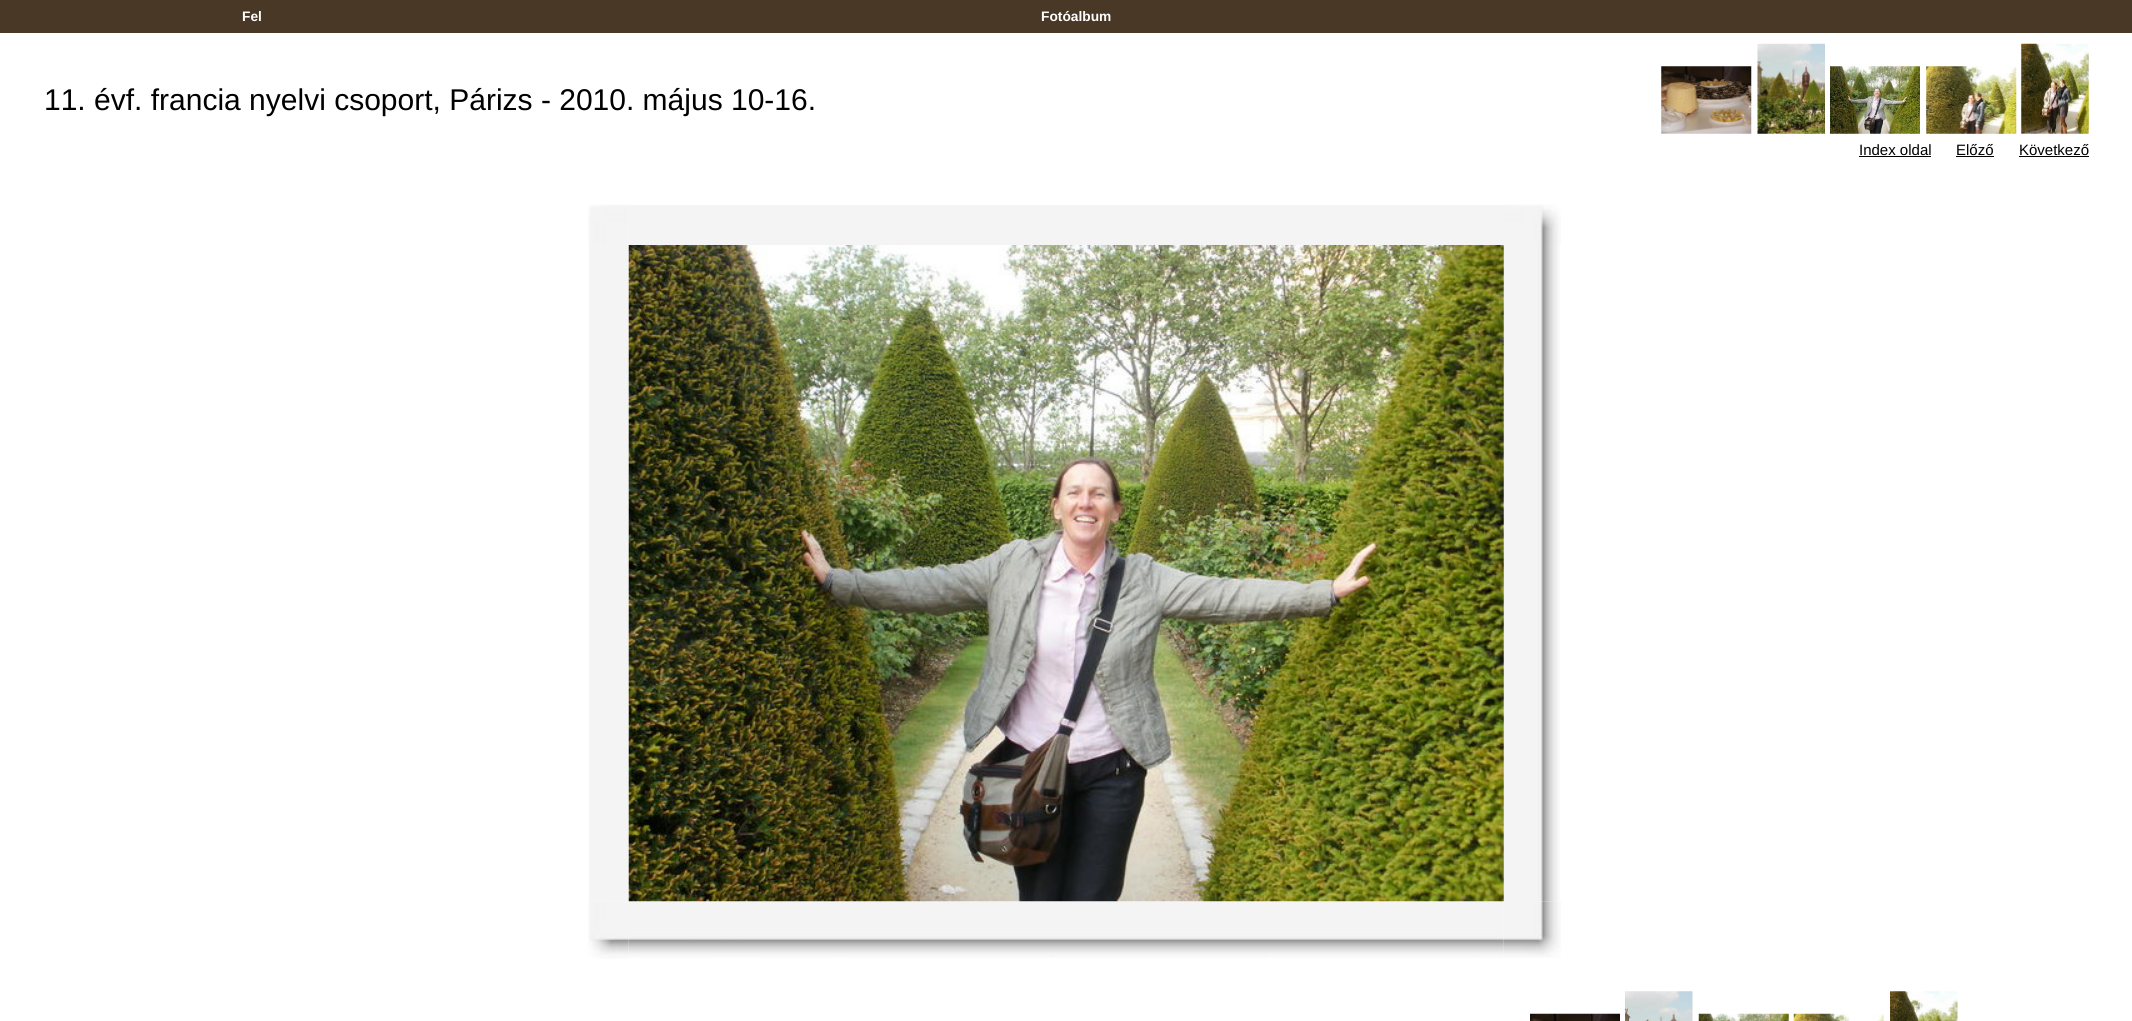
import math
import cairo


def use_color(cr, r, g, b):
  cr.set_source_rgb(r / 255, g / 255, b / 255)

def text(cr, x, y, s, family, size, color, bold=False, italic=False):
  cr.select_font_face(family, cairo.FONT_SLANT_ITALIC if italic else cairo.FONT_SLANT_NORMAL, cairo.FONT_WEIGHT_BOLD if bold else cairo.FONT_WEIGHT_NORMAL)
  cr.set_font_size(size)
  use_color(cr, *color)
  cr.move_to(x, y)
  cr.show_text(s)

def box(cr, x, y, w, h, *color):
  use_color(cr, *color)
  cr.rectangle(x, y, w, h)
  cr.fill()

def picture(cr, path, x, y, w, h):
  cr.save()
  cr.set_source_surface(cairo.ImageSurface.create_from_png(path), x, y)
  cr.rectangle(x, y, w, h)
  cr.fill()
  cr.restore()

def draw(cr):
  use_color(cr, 255, 255, 255)
  cr.paint()
  box(cr, 0, 0, 2132, 33, 74, 56, 38)
  picture(cr, "img_01.png", 1661, 66, 91, 68)
  picture(cr, "img_02.png", 1757, 43, 68, 91)
  picture(cr, "img_03.png", 1830, 66, 90, 68)
  picture(cr, "img_04.png", 1926, 66, 91, 68)
  picture(cr, "img_05.png", 2021, 43, 68, 91)
  box(cr, 1859, 156, 72, 1, 0, 0, 0)
  box(cr, 1956, 156, 38, 1, 0, 0, 0)
  box(cr, 2019, 156, 70, 1, 0, 0, 0)
  picture(cr, "img_06.png", 588, 204, 41, 41)
  box(cr, 629, 205, 875, 40, 244, 244, 244)
  picture(cr, "img_07.png", 1504, 204, 57, 41)
  box(cr, 589, 245, 40, 656, 244, 244, 244)
  picture(cr, "img_10.png", 588, 901, 41, 58)
  picture(cr, "img_11.png", 628, 901, 876, 57)
  picture(cr, "img_09.png", 1504, 245, 56, 657)
  picture(cr, "img_12.png", 1503, 901, 58, 57)
  picture(cr, "img_08.png", 628, 245, 876, 657)
  picture(cr, "img_13.png", 1530, 1013, 90, 8)
  picture(cr, "img_14.png", 1625, 991, 68, 30)
  picture(cr, "img_15.png", 1698, 1013, 91, 8)
  picture(cr, "img_16.png", 1793, 1013, 91, 8)
  picture(cr, "img_17.png", 1890, 991, 68, 30)
  text(cr, 242, 21, "Fel", "Liberation Sans", 13.75, (255, 255, 255), bold=True)
  text(cr, 1041, 21, "Fotóalbum", "Liberation Sans", 13.75, (255, 255, 255), bold=True)
  text(cr, 44, 110, "11. évf. francia nyelvi csoport, Párizs - 2010. május 10-16.", "Liberation Sans", 30, (0, 0, 0))
  text(cr, 1859, 155, "Index oldal", "Liberation Sans", 15, (0, 0, 0))
  text(cr, 1956, 155, "Előző", "Liberation Sans", 15, (0, 0, 0))
  text(cr, 2019, 155, "Következő", "Liberation Sans", 15, (0, 0, 0))


surface = cairo.ImageSurface(cairo.FORMAT_RGB24, 2132, 1021)
cr = cairo.Context(surface)
options = cairo.FontOptions()
options.set_hint_metrics(cairo.HINT_METRICS_OFF)
options.set_hint_style(cairo.HINT_STYLE_NONE)
cr.set_font_options(options)
cr.set_miter_limit(4)
draw(cr)
surface.write_to_png("out.png")
